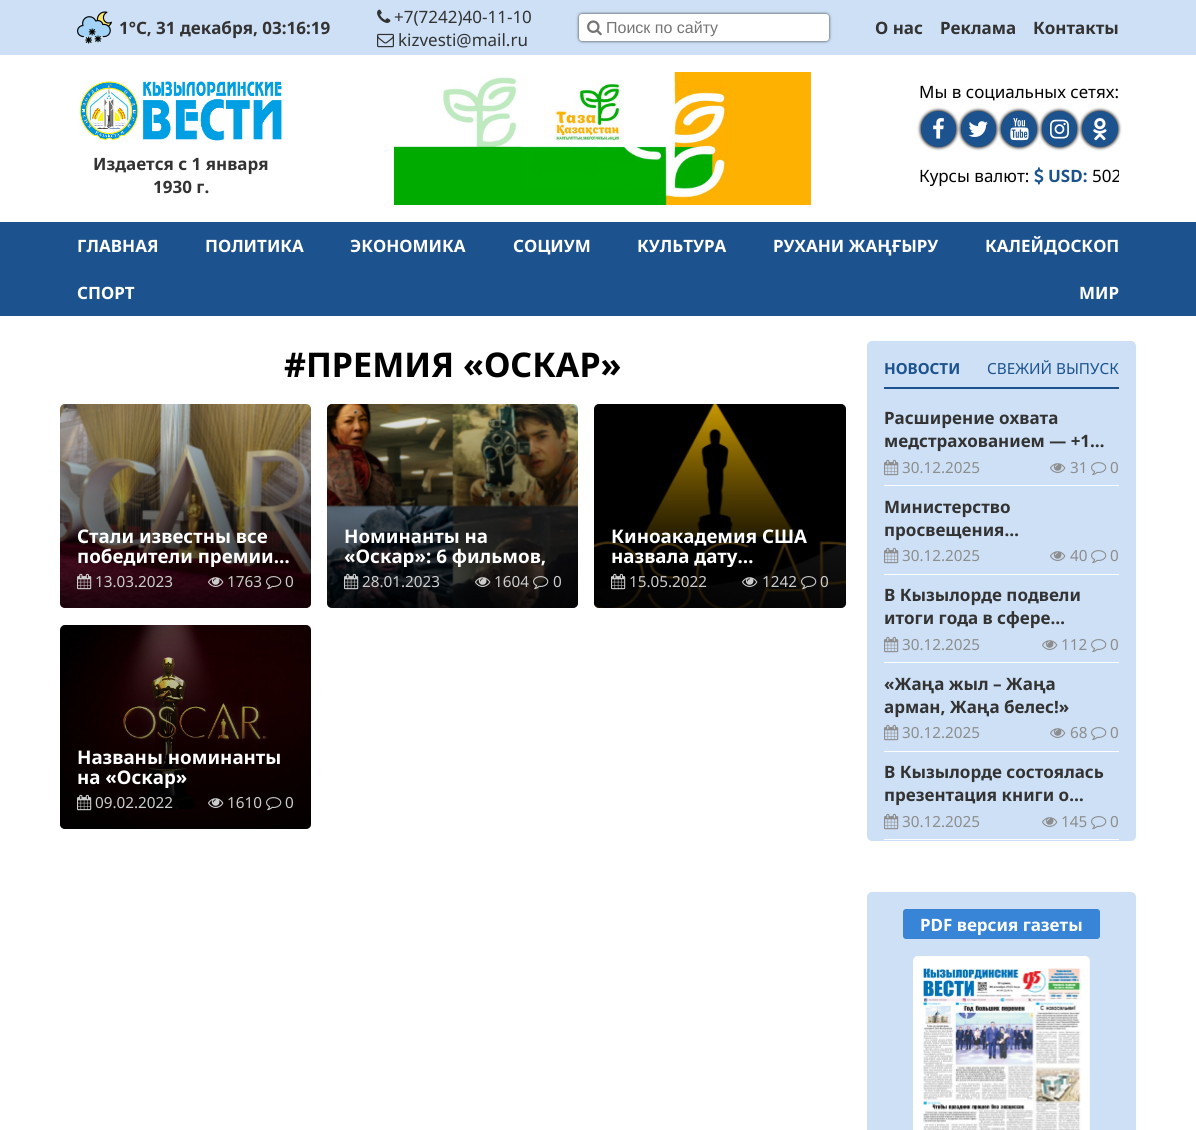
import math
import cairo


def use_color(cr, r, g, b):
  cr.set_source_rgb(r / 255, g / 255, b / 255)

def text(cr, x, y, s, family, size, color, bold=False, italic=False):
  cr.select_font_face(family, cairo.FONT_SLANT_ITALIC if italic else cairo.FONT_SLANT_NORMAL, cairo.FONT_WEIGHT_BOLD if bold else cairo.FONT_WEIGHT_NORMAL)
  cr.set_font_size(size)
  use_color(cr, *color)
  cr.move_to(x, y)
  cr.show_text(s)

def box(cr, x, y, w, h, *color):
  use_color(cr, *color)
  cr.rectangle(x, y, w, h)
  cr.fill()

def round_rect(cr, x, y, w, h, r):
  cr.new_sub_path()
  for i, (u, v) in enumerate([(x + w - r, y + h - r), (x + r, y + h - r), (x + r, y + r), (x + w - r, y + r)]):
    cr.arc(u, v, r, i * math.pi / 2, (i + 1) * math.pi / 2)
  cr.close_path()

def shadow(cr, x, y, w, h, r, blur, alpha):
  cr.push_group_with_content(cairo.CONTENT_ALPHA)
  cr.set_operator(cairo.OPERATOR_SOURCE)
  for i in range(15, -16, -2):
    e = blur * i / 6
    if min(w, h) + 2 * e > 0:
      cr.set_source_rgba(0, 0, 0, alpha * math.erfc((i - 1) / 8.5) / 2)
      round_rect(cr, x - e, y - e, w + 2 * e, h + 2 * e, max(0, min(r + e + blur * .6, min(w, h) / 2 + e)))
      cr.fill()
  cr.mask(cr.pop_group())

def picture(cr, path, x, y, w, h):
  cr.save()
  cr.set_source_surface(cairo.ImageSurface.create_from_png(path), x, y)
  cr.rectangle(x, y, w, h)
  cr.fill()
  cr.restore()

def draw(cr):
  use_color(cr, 255, 255, 255)
  cr.paint()
  box(cr, 0, 0, 1196, 55, 205, 224, 245)
  picture(cr, "img_01.png", 77, 11, 35, 33)
  picture(cr, "img_02.png", 377, 9, 14, 14)
  picture(cr, "img_03.png", 377, 33, 17, 15)
  use_color(cr, 51, 51, 51)
  shadow(cr, 579, 14, 250, 27, 3, 1.5, 1)
  use_color(cr, 255, 255, 255)
  round_rect(cr, 579, 14, 250, 27, 3)
  cr.fill()
  picture(cr, "img_04.png", 587, 20, 15, 16)
  picture(cr, "img_05.png", 79, 81, 203, 60)
  picture(cr, "img_06.png", 394, 72, 417, 133)
  use_color(cr, 51, 51, 51)
  shadow(cr, 920, 110, 37, 38, 18.5, 1.5, 1)
  use_color(cr, 28, 82, 141)
  round_rect(cr, 921, 111, 35, 36, 17.5)
  cr.fill()
  picture(cr, "img_07.png", 933, 118, 11, 21)
  use_color(cr, 51, 51, 51)
  shadow(cr, 960, 110, 37, 38, 18.5, 1.5, 1)
  use_color(cr, 28, 82, 141)
  round_rect(cr, 961, 111, 35, 36, 17.5)
  cr.fill()
  picture(cr, "img_08.png", 968, 121, 20, 16)
  use_color(cr, 51, 51, 51)
  shadow(cr, 1000, 110, 38, 38, 19, 1.5, 1)
  use_color(cr, 28, 82, 141)
  cr.arc(1019, 129, 18, 0, 2 * math.pi)
  cr.fill()
  picture(cr, "img_09.png", 1010, 118, 19, 23)
  use_color(cr, 51, 51, 51)
  shadow(cr, 1041, 110, 37, 38, 18.5, 1.5, 1)
  use_color(cr, 28, 82, 141)
  round_rect(cr, 1042, 111, 35, 36, 17.5)
  cr.fill()
  picture(cr, "img_10.png", 1050, 119, 19, 20)
  use_color(cr, 51, 51, 51)
  shadow(cr, 1081, 110, 38, 38, 19, 1.5, 1)
  use_color(cr, 28, 82, 141)
  cr.arc(1100, 129, 18, 0, 2 * math.pi)
  cr.fill()
  picture(cr, "img_11.png", 1093, 118, 14, 23)
  picture(cr, "img_12.png", 1034, 167, 10, 18)
  box(cr, 0, 222, 1196, 94, 28, 82, 141)
  picture(cr, "img_13.png", 60, 404, 251, 204)
  gradient = cairo.LinearGradient(186, 619, 186, 394)
  gradient.add_color_stop_rgba(0, 0, 0, 0, 0.9)
  gradient.add_color_stop_rgba(1, 0, 0, 0, 0)
  cr.set_source(gradient)
  round_rect(cr, 60, 404, 251, 204, 5)
  cr.fill()
  picture(cr, "img_14.png", 77, 573, 15, 17)
  picture(cr, "img_15.png", 208, 577, 16, 10)
  picture(cr, "img_16.png", 266, 576, 16, 14)
  picture(cr, "img_17.png", 327, 404, 251, 204)
  gradient = cairo.LinearGradient(453, 619, 453, 394)
  gradient.add_color_stop_rgba(0, 0, 0, 0, 0.9)
  gradient.add_color_stop_rgba(1, 0, 0, 0, 0)
  cr.set_source(gradient)
  round_rect(cr, 327, 404, 251, 204, 5)
  cr.fill()
  picture(cr, "img_18.png", 344, 573, 15, 17)
  picture(cr, "img_19.png", 475, 577, 16, 10)
  picture(cr, "img_20.png", 533, 576, 16, 14)
  picture(cr, "img_21.png", 594, 404, 252, 204)
  gradient = cairo.LinearGradient(720, 619, 720, 394)
  gradient.add_color_stop_rgba(0, 0, 0, 0, 0.9)
  gradient.add_color_stop_rgba(1, 0, 0, 0, 0)
  cr.set_source(gradient)
  round_rect(cr, 594, 404, 252, 204, 5)
  cr.fill()
  picture(cr, "img_22.png", 611, 573, 15, 17)
  picture(cr, "img_23.png", 742, 577, 16, 10)
  picture(cr, "img_24.png", 801, 576, 16, 14)
  picture(cr, "img_25.png", 60, 625, 251, 204)
  gradient = cairo.LinearGradient(186, 840, 186, 615)
  gradient.add_color_stop_rgba(0, 0, 0, 0, 0.9)
  gradient.add_color_stop_rgba(1, 0, 0, 0, 0)
  cr.set_source(gradient)
  round_rect(cr, 60, 625, 251, 204, 5)
  cr.fill()
  picture(cr, "img_26.png", 77, 794, 15, 17)
  picture(cr, "img_27.png", 208, 798, 16, 10)
  picture(cr, "img_28.png", 266, 797, 16, 14)
  use_color(cr, 205, 224, 245)
  round_rect(cr, 867, 341, 269, 500, 5)
  cr.fill()
  box(cr, 884, 387, 235, 2, 28, 82, 141)
  box(cr, 884, 485, 235, 1, 255, 255, 255)
  picture(cr, "img_29.png", 884, 459, 15, 17)
  picture(cr, "img_30.png", 1050, 463, 16, 10)
  picture(cr, "img_31.png", 1091, 462, 16, 14)
  box(cr, 884, 574, 235, 1, 255, 255, 255)
  picture(cr, "img_29.png", 884, 547, 15, 17)
  picture(cr, "img_30.png", 1050, 551, 16, 10)
  picture(cr, "img_31.png", 1091, 550, 16, 14)
  box(cr, 884, 662, 235, 1, 255, 255, 255)
  picture(cr, "img_29.png", 884, 636, 15, 17)
  picture(cr, "img_30.png", 1042, 640, 16, 10)
  picture(cr, "img_31.png", 1091, 639, 16, 14)
  box(cr, 884, 751, 235, 1, 255, 255, 255)
  picture(cr, "img_29.png", 884, 724, 15, 17)
  picture(cr, "img_30.png", 1050, 728, 16, 10)
  picture(cr, "img_31.png", 1091, 727, 16, 14)
  box(cr, 884, 839, 235, 1, 255, 255, 255)
  picture(cr, "img_29.png", 884, 813, 15, 17)
  picture(cr, "img_30.png", 1042, 817, 16, 10)
  picture(cr, "img_31.png", 1091, 816, 16, 14)
  use_color(cr, 205, 224, 245)
  round_rect(cr, 867, 892, 269, 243, 5)
  cr.fill()
  use_color(cr, 56, 132, 215)
  round_rect(cr, 903, 909, 197, 30, 3)
  cr.fill()
  picture(cr, "img_32.png", 913, 956, 177, 174)
  text(cr, 119, 34, "1°C, 31 декабря, 03:16:19", "Noto Sans", 17, (51, 51, 51), bold=True)
  text(cr, 394, 23, "+7(7242)40-11-10", "Noto Sans", 17, (51, 51, 51))
  text(cr, 398, 46, "kizvesti@mail.ru", "Noto Sans", 17, (51, 51, 51))
  text(cr, 606, 33, "Поиск по сайту", "Liberation Sans", 16, (117, 117, 117))
  text(cr, 875, 34, "О нас", "Noto Sans", 17, (51, 51, 51), bold=True)
  text(cr, 940, 34, "Реклама", "Noto Sans", 17, (51, 51, 51), bold=True)
  text(cr, 1033, 34, "Контакты", "Noto Sans", 17, (51, 51, 51), bold=True)
  text(cr, 93, 170, "Издается с 1 января", "Noto Sans", 17, (51, 51, 51), bold=True)
  text(cr, 153, 193, "1930 г.", "Noto Sans", 17, (51, 51, 51), bold=True)
  text(cr, 919, 98, "Мы в социальных сетях:", "Noto Sans", 17, (0, 0, 0))
  text(cr, 919, 182, "Курсы валют:", "Noto Sans", 17, (0, 0, 0))
  text(cr, 1048, 182, "USD:", "Noto Sans", 17, (28, 82, 141), bold=True)
  cr.save()
  cr.rectangle(919, 147, 200, 42)
  cr.clip()
  text(cr, 1092, 182, "502", "Noto Sans", 17, (0, 0, 0))
  cr.restore()
  text(cr, 77, 252, "ГЛАВНАЯ", "Noto Sans", 17, (255, 255, 255), bold=True)
  text(cr, 205, 252, "ПОЛИТИКА", "Noto Sans", 17, (255, 255, 255), bold=True)
  text(cr, 350, 252, "ЭКОНОМИКА", "Noto Sans", 17, (255, 255, 255), bold=True)
  text(cr, 513, 252, "СОЦИУМ", "Noto Sans", 17, (255, 255, 255), bold=True)
  text(cr, 637, 252, "КУЛЬТУРА", "Noto Sans", 17, (255, 255, 255), bold=True)
  text(cr, 773, 252, "РУХАНИ ЖАҢҒЫРУ", "Noto Sans", 17, (255, 255, 255), bold=True)
  text(cr, 985, 252, "КАЛЕЙДОСКОП", "Noto Sans", 17, (255, 255, 255), bold=True)
  text(cr, 77, 299, "СПОРТ", "Noto Sans", 17, (255, 255, 255), bold=True)
  text(cr, 1079, 299, "МИР", "Noto Sans", 17, (255, 255, 255), bold=True)
  text(cr, 284, 377, "#ПРЕМИЯ «ОСКАР»", "Noto Sans", 34, (0, 0, 0), bold=True)
  text(cr, 77, 543, "Стали известны все", "Noto Sans", 18.75, (255, 255, 255), bold=True)
  cr.save()
  cr.rectangle(77, 526, 217, 41)
  cr.clip()
  text(cr, 77, 563, "победители премии…", "Noto Sans", 18.75, (255, 255, 255), bold=True)
  cr.restore()
  text(cr, 95, 587, "13.03.2023", "Noto Sans", 15.25, (204, 204, 204))
  text(cr, 227, 587, "1763", "Noto Sans", 15.25, (204, 204, 204))
  text(cr, 285, 587, "0", "Noto Sans", 15.25, (204, 204, 204))
  text(cr, 344, 543, "Номинанты на", "Noto Sans", 18.75, (255, 255, 255), bold=True)
  cr.save()
  cr.rectangle(344, 526, 217, 41)
  cr.clip()
  text(cr, 344, 563, "«Оскар»: 6 фильмов,", "Noto Sans", 18.75, (255, 255, 255), bold=True)
  cr.restore()
  text(cr, 362, 587, "28.01.2023", "Noto Sans", 15.25, (204, 204, 204))
  text(cr, 494, 587, "1604", "Noto Sans", 15.25, (204, 204, 204))
  text(cr, 553, 587, "0", "Noto Sans", 15.25, (204, 204, 204))
  text(cr, 611, 543, "Киноакадемия США", "Noto Sans", 18.75, (255, 255, 255), bold=True)
  cr.save()
  cr.rectangle(611, 526, 218, 41)
  cr.clip()
  text(cr, 611, 563, "назвала дату…", "Noto Sans", 18.75, (255, 255, 255), bold=True)
  cr.restore()
  text(cr, 629, 587, "15.05.2022", "Noto Sans", 15.25, (204, 204, 204))
  text(cr, 762, 587, "1242", "Noto Sans", 15.25, (204, 204, 204))
  text(cr, 820, 587, "0", "Noto Sans", 15.25, (204, 204, 204))
  text(cr, 77, 764, "Названы номинанты", "Noto Sans", 18.75, (255, 255, 255), bold=True)
  cr.save()
  cr.rectangle(77, 747, 217, 41)
  cr.clip()
  text(cr, 77, 784, "на «Оскар»", "Noto Sans", 18.75, (255, 255, 255), bold=True)
  cr.restore()
  text(cr, 95, 808, "09.02.2022", "Noto Sans", 15.25, (204, 204, 204))
  text(cr, 227, 808, "1610", "Noto Sans", 15.25, (204, 204, 204))
  text(cr, 285, 808, "0", "Noto Sans", 15.25, (204, 204, 204))
  text(cr, 884, 374, "НОВОСТИ", "Noto Sans", 15.25, (28, 82, 141), bold=True)
  text(cr, 987, 374, "СВЕЖИЙ ВЫПУСК", "Noto Sans", 15.25, (28, 82, 141))
  text(cr, 884, 424, "Расширение охвата", "Noto Sans", 17, (51, 51, 51), bold=True)
  text(cr, 884, 447, "медстрахованием — +1…", "Noto Sans", 17, (51, 51, 51), bold=True)
  text(cr, 902, 473, "30.12.2025", "Noto Sans", 15.25, (141, 141, 141))
  text(cr, 1070, 473, "31", "Noto Sans", 15.25, (141, 141, 141))
  text(cr, 1110, 473, "0", "Noto Sans", 15.25, (141, 141, 141))
  text(cr, 884, 513, "Министерство", "Noto Sans", 17, (51, 51, 51), bold=True)
  text(cr, 884, 536, "просвещения…", "Noto Sans", 17, (51, 51, 51), bold=True)
  text(cr, 902, 561, "30.12.2025", "Noto Sans", 15.25, (141, 141, 141))
  text(cr, 1070, 561, "40", "Noto Sans", 15.25, (141, 141, 141))
  text(cr, 1110, 561, "0", "Noto Sans", 15.25, (141, 141, 141))
  text(cr, 884, 601, "В Кызылорде подвели", "Noto Sans", 17, (51, 51, 51), bold=True)
  text(cr, 884, 624, "итоги года в сфере…", "Noto Sans", 17, (51, 51, 51), bold=True)
  text(cr, 902, 650, "30.12.2025", "Noto Sans", 15.25, (141, 141, 141))
  text(cr, 1061, 650, "112", "Noto Sans", 15.25, (141, 141, 141))
  text(cr, 1110, 650, "0", "Noto Sans", 15.25, (141, 141, 141))
  text(cr, 884, 690, "«Жаңа жыл – Жаңа", "Noto Sans", 17, (51, 51, 51), bold=True)
  text(cr, 884, 713, "арман, Жаңа белес!»", "Noto Sans", 17, (51, 51, 51), bold=True)
  text(cr, 902, 738, "30.12.2025", "Noto Sans", 15.25, (141, 141, 141))
  text(cr, 1070, 738, "68", "Noto Sans", 15.25, (141, 141, 141))
  text(cr, 1110, 738, "0", "Noto Sans", 15.25, (141, 141, 141))
  text(cr, 884, 778, "В Кызылорде состоялась", "Noto Sans", 17, (51, 51, 51), bold=True)
  text(cr, 884, 801, "презентация книги о…", "Noto Sans", 17, (51, 51, 51), bold=True)
  text(cr, 902, 827, "30.12.2025", "Noto Sans", 15.25, (141, 141, 141))
  text(cr, 1061, 827, "145", "Noto Sans", 15.25, (141, 141, 141))
  text(cr, 1110, 827, "0", "Noto Sans", 15.25, (141, 141, 141))
  text(cr, 920, 931, "PDF версия газеты", "Noto Sans", 17, (255, 255, 255), bold=True)


surface = cairo.ImageSurface(cairo.FORMAT_RGB24, 1196, 1130)
cr = cairo.Context(surface)
options = cairo.FontOptions()
options.set_hint_metrics(cairo.HINT_METRICS_OFF)
options.set_hint_style(cairo.HINT_STYLE_NONE)
cr.set_font_options(options)
cr.set_miter_limit(4)
draw(cr)
surface.write_to_png("out.png")
